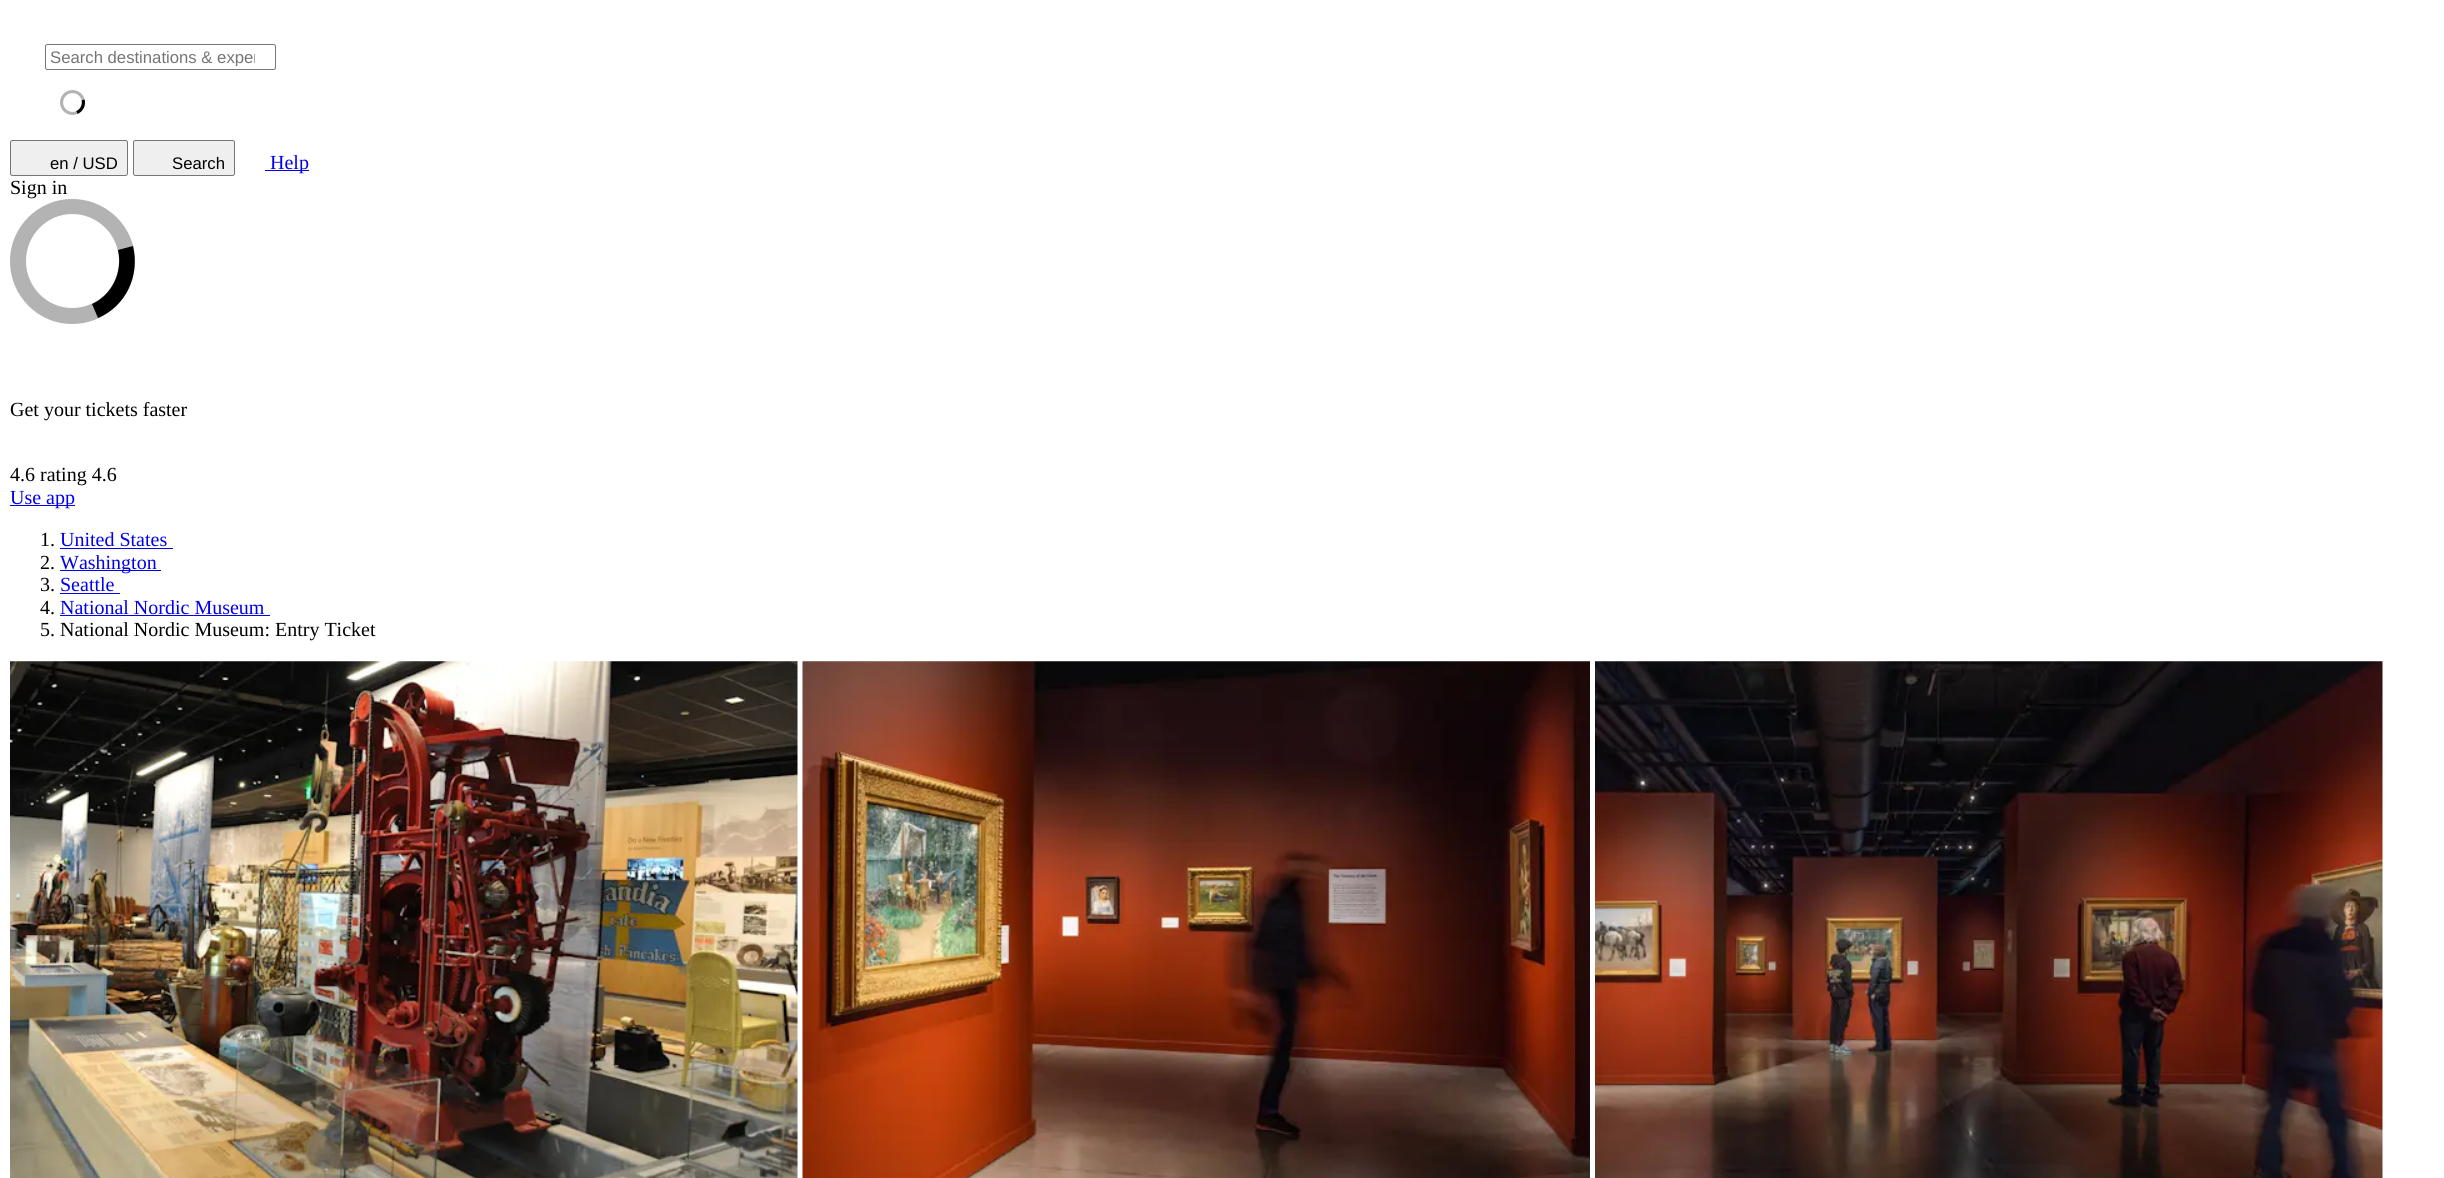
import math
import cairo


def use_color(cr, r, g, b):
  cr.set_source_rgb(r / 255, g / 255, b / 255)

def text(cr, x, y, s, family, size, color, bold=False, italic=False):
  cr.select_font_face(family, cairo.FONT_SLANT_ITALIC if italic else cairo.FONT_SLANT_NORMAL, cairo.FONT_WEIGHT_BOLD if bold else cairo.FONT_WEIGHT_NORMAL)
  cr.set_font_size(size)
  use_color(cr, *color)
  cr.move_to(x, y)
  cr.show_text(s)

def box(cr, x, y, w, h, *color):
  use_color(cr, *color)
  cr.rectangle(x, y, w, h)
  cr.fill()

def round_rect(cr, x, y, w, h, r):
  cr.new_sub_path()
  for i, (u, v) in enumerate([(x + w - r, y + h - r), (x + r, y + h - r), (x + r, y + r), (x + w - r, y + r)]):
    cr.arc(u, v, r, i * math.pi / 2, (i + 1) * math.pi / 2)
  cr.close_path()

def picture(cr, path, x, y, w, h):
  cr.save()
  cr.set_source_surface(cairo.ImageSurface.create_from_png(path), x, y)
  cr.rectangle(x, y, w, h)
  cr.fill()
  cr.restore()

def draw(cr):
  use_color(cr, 255, 255, 255)
  cr.paint()
  round_rect(cr, 45.5, 44.5, 230, 25, 2)
  use_color(cr, 118, 118, 118)
  cr.set_line_width(1)
  cr.stroke()
  picture(cr, "img_01.png", 60, 90, 25, 25)
  use_color(cr, 239, 239, 239)
  round_rect(cr, 10.5, 140.5, 117, 35, 2)
  cr.fill_preserve()
  use_color(cr, 118, 118, 118)
  cr.stroke()
  use_color(cr, 239, 239, 239)
  round_rect(cr, 133.5, 140.5, 101, 35, 2)
  cr.fill_preserve()
  use_color(cr, 118, 118, 118)
  cr.stroke()
  box(cr, 265, 170, 44, 1, 0, 0, 238)
  use_color(cr, 179, 179, 179)
  cr.new_path()
  cr.move_to(72, 324)
  cr.curve_to(38, 324, 10, 296, 10, 261)
  cr.curve_to(10, 227, 38, 199, 72, 199)
  cr.curve_to(107, 199, 135, 227, 135, 261)
  cr.curve_to(135, 296, 107, 324, 72, 324)
  cr.close_path()
  cr.move_to(72, 308)
  cr.curve_to(98, 308, 119, 287, 119, 261)
  cr.curve_to(119, 235, 98, 214, 72, 214)
  cr.curve_to(47, 214, 26, 235, 26, 261)
  cr.curve_to(26, 287, 47, 308, 72, 308)
  cr.close_path()
  cr.fill()
  use_color(cr, 0, 0, 0)
  cr.new_path()
  cr.move_to(133, 246)
  cr.curve_to(140, 276, 126, 306, 98, 318)
  cr.line_to(92, 304)
  cr.curve_to(112, 295, 123, 272, 118, 250)
  cr.close_path()
  cr.fill()
  box(cr, 10, 505, 65, 1, 0, 0, 238)
  box(cr, 60, 548, 113, 1, 0, 0, 238)
  box(cr, 60, 570, 96, 1, 0, 0, 238)
  box(cr, 156, 570, 5, 1, 0, 0, 238)
  box(cr, 60, 593, 60, 1, 0, 0, 238)
  box(cr, 60, 615, 210, 1, 0, 0, 238)
  picture(cr, "img_02.png", 10, 661, 788, 517)
  picture(cr, "img_03.png", 802, 661, 788, 517)
  picture(cr, "img_04.png", 1595, 661, 788, 517)
  cr.save()
  cr.rectangle(50, 48, 205, 18)
  cr.clip()
  text(cr, 50, 63, "Search destinations & exper", "Liberation Sans", 16.7, (117, 117, 117))
  cr.restore()
  text(cr, 50, 169, "en / USD", "Liberation Sans", 16.7, (0, 0, 0))
  text(cr, 172, 169, "Search", "Liberation Sans", 16.7, (0, 0, 0))
  text(cr, 270, 169, "Help", "Liberation Serif", 20, (0, 0, 238))
  text(cr, 10, 194, "Sign in", "Liberation Serif", 20, (0, 0, 0))
  text(cr, 10, 416, "Get your tickets faster", "Liberation Serif", 20, (0, 0, 0))
  text(cr, 10, 481, "4.6 rating 4.6", "Liberation Serif", 20, (0, 0, 0))
  text(cr, 10, 504, "Use app", "Liberation Serif", 20, (0, 0, 238))
  text(cr, 40, 546, "1.", "Liberation Serif", 20, (0, 0, 0))
  text(cr, 60, 546, "United States", "Liberation Serif", 20, (0, 0, 238))
  text(cr, 40, 569, "2.", "Liberation Serif", 20, (0, 0, 0))
  text(cr, 60, 569, "Washington", "Liberation Serif", 20, (0, 0, 238))
  text(cr, 40, 591, "3.", "Liberation Serif", 20, (0, 0, 0))
  text(cr, 60, 591, "Seattle", "Liberation Serif", 20, (0, 0, 238))
  text(cr, 40, 614, "4.", "Liberation Serif", 20, (0, 0, 0))
  text(cr, 60, 614, "National Nordic Museum", "Liberation Serif", 20, (0, 0, 238))
  text(cr, 40, 636, "5. National Nordic Museum: Entry Ticket", "Liberation Serif", 20, (0, 0, 0))


surface = cairo.ImageSurface(cairo.FORMAT_RGB24, 2444, 1178)
cr = cairo.Context(surface)
options = cairo.FontOptions()
options.set_hint_metrics(cairo.HINT_METRICS_OFF)
options.set_hint_style(cairo.HINT_STYLE_NONE)
cr.set_font_options(options)
cr.set_miter_limit(4)
draw(cr)
surface.write_to_png("out.png")
